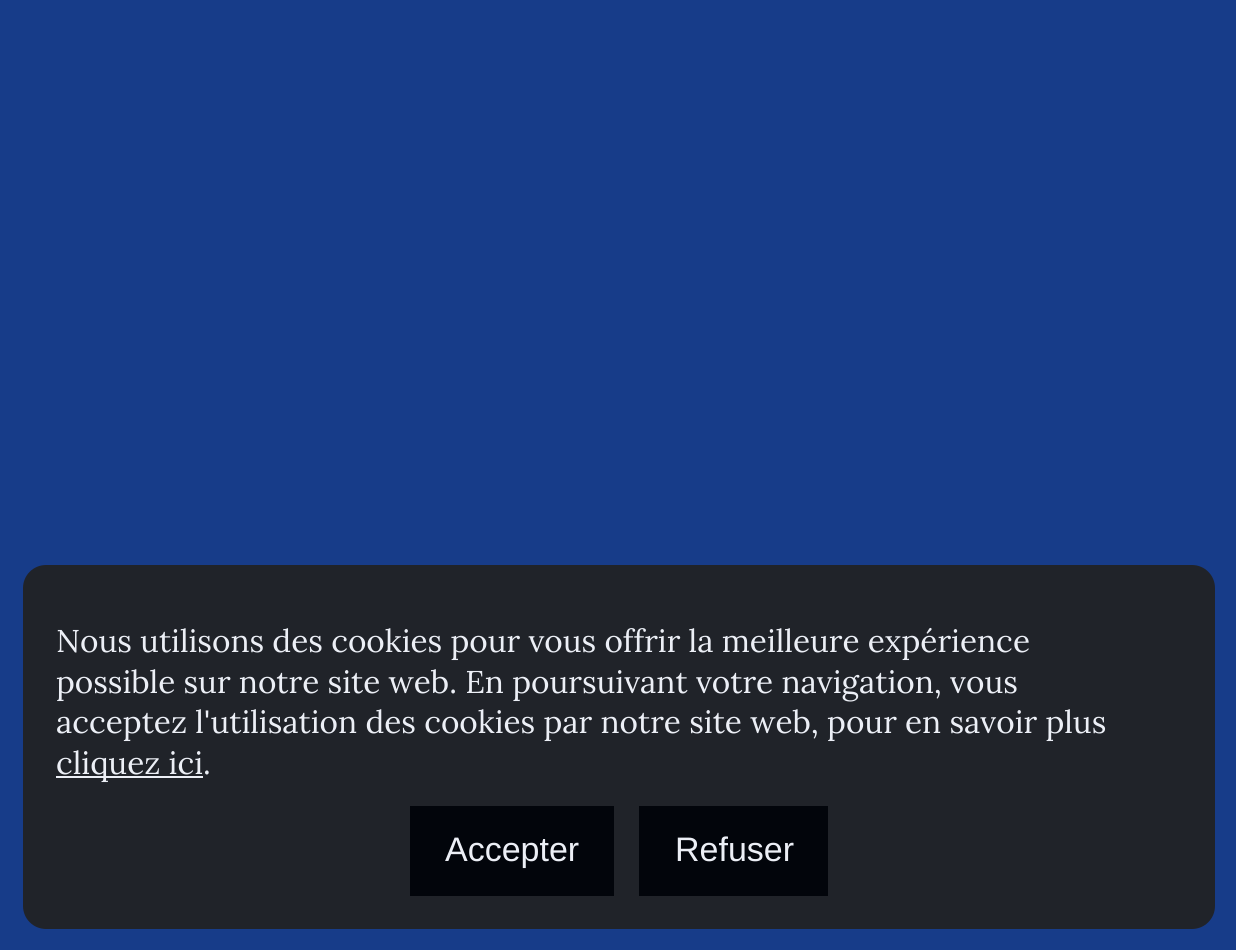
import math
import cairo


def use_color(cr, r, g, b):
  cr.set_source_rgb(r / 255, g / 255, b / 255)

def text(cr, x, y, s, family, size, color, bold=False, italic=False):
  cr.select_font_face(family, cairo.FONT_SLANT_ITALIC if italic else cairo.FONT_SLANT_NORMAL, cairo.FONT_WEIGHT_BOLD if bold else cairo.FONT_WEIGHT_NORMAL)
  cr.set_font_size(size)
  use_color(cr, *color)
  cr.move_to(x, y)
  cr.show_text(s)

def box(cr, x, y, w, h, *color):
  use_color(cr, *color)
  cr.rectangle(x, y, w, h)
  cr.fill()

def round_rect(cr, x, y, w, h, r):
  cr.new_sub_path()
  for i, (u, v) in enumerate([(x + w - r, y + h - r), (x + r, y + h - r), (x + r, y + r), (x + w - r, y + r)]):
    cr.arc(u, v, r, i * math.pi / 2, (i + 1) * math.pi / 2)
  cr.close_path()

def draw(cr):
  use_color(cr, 23, 60, 137)
  cr.paint()
  use_color(cr, 32, 35, 41)
  round_rect(cr, 23, 565, 1192, 364, 23)
  cr.fill()
  box(cr, 56, 776, 147, 2, 236, 239, 246)
  box(cr, 410, 806, 204, 90, 2, 5, 11)
  box(cr, 639, 806, 189, 90, 2, 5, 11)
  text(cr, 56, 652, "Nous utilisons des cookies pour vous offrir la meilleure expérience", "Lora", 31.5, (236, 239, 246))
  text(cr, 56, 693, "possible sur notre site web. En poursuivant votre navigation, vous", "Lora", 31.5, (236, 239, 246))
  text(cr, 56, 733, "acceptez l'utilisation des cookies par notre site web, pour en savoir plus", "Lora", 31.5, (236, 239, 246))
  text(cr, 56, 774, "cliquez ici.", "Lora", 31.5, (236, 239, 246))
  text(cr, 445, 861, "Accepter", "Liberation Sans", 34, (236, 239, 246))
  text(cr, 675, 861, "Refuser", "Liberation Sans", 34, (236, 239, 246))


surface = cairo.ImageSurface(cairo.FORMAT_RGB24, 1236, 950)
cr = cairo.Context(surface)
options = cairo.FontOptions()
options.set_hint_metrics(cairo.HINT_METRICS_OFF)
options.set_hint_style(cairo.HINT_STYLE_NONE)
cr.set_font_options(options)
cr.set_miter_limit(4)
draw(cr)
surface.write_to_png("out.png")
